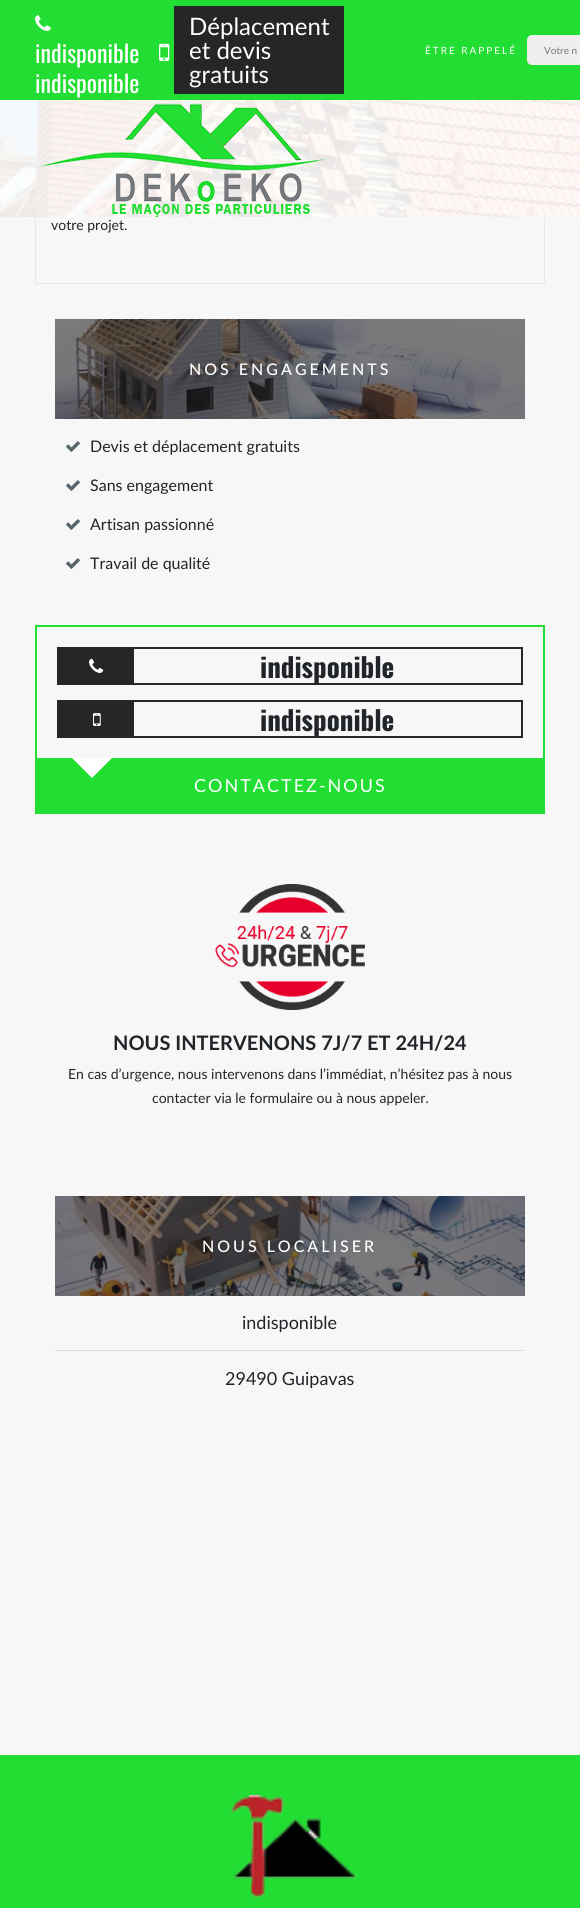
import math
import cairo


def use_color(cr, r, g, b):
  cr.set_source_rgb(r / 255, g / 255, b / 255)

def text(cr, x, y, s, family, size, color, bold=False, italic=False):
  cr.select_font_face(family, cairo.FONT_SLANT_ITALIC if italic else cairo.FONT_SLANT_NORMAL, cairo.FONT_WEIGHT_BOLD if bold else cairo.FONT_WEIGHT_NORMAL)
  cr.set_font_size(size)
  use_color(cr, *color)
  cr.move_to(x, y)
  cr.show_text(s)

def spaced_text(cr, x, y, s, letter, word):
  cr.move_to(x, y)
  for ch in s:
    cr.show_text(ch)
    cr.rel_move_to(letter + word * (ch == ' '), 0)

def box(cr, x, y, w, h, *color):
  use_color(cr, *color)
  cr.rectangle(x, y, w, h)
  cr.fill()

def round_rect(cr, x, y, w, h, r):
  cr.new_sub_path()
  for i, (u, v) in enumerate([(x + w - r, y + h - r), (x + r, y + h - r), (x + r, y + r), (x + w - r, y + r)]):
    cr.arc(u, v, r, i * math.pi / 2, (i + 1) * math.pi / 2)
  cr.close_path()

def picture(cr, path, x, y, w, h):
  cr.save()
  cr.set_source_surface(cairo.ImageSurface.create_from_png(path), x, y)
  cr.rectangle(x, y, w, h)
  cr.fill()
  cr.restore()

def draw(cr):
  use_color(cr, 247, 247, 247)
  cr.paint()
  cr.rectangle(35.5, -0.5, 509, 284)
  use_color(cr, 232, 232, 232)
  cr.set_line_width(1)
  cr.stroke()
  picture(cr, "img_01.png", 0, 100, 580, 117)
  box(cr, 0, 0, 580, 100, 34, 222, 50)
  picture(cr, "img_02.png", 35, 15, 16, 16)
  picture(cr, "img_03.png", 159, 43, 11, 18)
  box(cr, 174, 6, 170, 88, 38, 38, 38)
  use_color(cr, 239, 239, 239)
  round_rect(cr, 527, 35, 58, 30, 5)
  cr.fill()
  cr.set_source_rgba(1, 1, 1, 0.9)
  cr.rectangle(0, 100, 580, 117)
  cr.fill()
  picture(cr, "img_04.png", 38, 103, 291, 114)
  picture(cr, "img_05.png", 55, 319, 470, 100)
  picture(cr, "img_06.png", 66, 441, 14, 11)
  picture(cr, "img_06.png", 66, 480, 14, 11)
  picture(cr, "img_06.png", 66, 519, 14, 11)
  picture(cr, "img_06.png", 66, 558, 14, 11)
  cr.rectangle(36, 626, 508, 187)
  use_color(cr, 34, 222, 50)
  cr.set_line_width(2)
  cr.stroke()
  cr.rectangle(58, 648, 464, 36)
  use_color(cr, 38, 38, 38)
  cr.stroke()
  box(cr, 59, 649, 75, 34, 38, 38, 38)
  picture(cr, "img_07.png", 89, 658, 15, 15)
  cr.rectangle(58, 701, 464, 36)
  cr.stroke()
  box(cr, 59, 702, 75, 34, 38, 38, 38)
  picture(cr, "img_08.png", 93, 713, 8, 13)
  box(cr, 37, 758, 506, 54, 34, 222, 50)
  use_color(cr, 255, 255, 255)
  cr.new_path()
  cr.move_to(72, 758)
  cr.line_to(112, 758)
  cr.line_to(92, 778)
  cr.close_path()
  cr.fill()
  picture(cr, "img_09.png", 215, 884, 150, 126)
  picture(cr, "img_10.png", 55, 1196, 470, 100)
  box(cr, 55, 1350, 470, 1, 222, 222, 222)
  box(cr, 0, 1755, 580, 153, 34, 222, 50)
  picture(cr, "img_11.png", 230, 1795, 127, 103)
  text(cr, 35, 63, "indisponible", "Oswald", 24, (255, 255, 255))
  text(cr, 35, 93, "indisponible", "Oswald", 24, (255, 255, 255))
  text(cr, 189, 35, "Déplacement", "Lato", 24, (255, 255, 255))
  text(cr, 189, 59, "et devis", "Lato", 24, (255, 255, 255))
  text(cr, 189, 83, "gratuits", "Lato", 24, (255, 255, 255))
  cr.set_font_size(10)
  spaced_text(cr, 425, 54, "ÊTRE RAPPELÉ", 2, 0)
  text(cr, 544, 54, "Votre n", "Lato", 10, (117, 117, 117))
  text(cr, 51, 230, "votre projet.", "Lato", 14, (33, 37, 41))
  cr.select_font_face("Lato Medium")
  cr.set_font_size(16)
  use_color(cr, 255, 255, 255)
  spaced_text(cr, 189, 375, "NOS ENGAGEMENTS", 3, 0)
  text(cr, 90, 452, "Devis et déplacement gratuits", "Lato", 16, (33, 37, 41))
  text(cr, 90, 491, "Sans engagement", "Lato", 16, (33, 37, 41))
  text(cr, 90, 530, "Artisan passionné", "Lato", 16, (33, 37, 41))
  text(cr, 90, 569, "Travail de qualité", "Lato", 16, (33, 37, 41))
  cr.save()
  cr.rectangle(59, 649, 462, 34)
  cr.clip()
  text(cr, 260, 678, "indisponible", "Oswald", 27, (33, 37, 41), bold=True)
  cr.restore()
  cr.save()
  cr.rectangle(59, 702, 462, 34)
  cr.clip()
  text(cr, 260, 731, "indisponible", "Oswald", 27, (33, 37, 41), bold=True)
  cr.restore()
  cr.set_font_size(18)
  use_color(cr, 255, 255, 255)
  spaced_text(cr, 194, 792, "CONTACTEZ-NOUS", 2, 0)
  text(cr, 113, 1050, "NOUS INTERVENONS 7J/7 ET 24H/24", "Lato", 20, (33, 37, 41), bold=True)
  text(cr, 68, 1079, "En cas d’urgence, nous intervenons dans l’immédiat, n’hésitez pas à nous", "Lato", 14, (33, 37, 41))
  text(cr, 152, 1103, "contacter via le formulaire ou à nous appeler.", "Lato", 14, (33, 37, 41))
  cr.select_font_face("Lato Medium")
  cr.set_font_size(16)
  use_color(cr, 255, 255, 255)
  spaced_text(cr, 202, 1252, "NOUS LOCALISER", 3, 0)
  text(cr, 242, 1329, "indisponible", "Lato", 18, (33, 37, 41))
  text(cr, 225, 1385, "29490 Guipavas", "Lato", 18, (33, 37, 41))


surface = cairo.ImageSurface(cairo.FORMAT_RGB24, 580, 1908)
cr = cairo.Context(surface)
options = cairo.FontOptions()
options.set_hint_metrics(cairo.HINT_METRICS_OFF)
options.set_hint_style(cairo.HINT_STYLE_NONE)
cr.set_font_options(options)
cr.set_miter_limit(4)
draw(cr)
surface.write_to_png("out.png")
